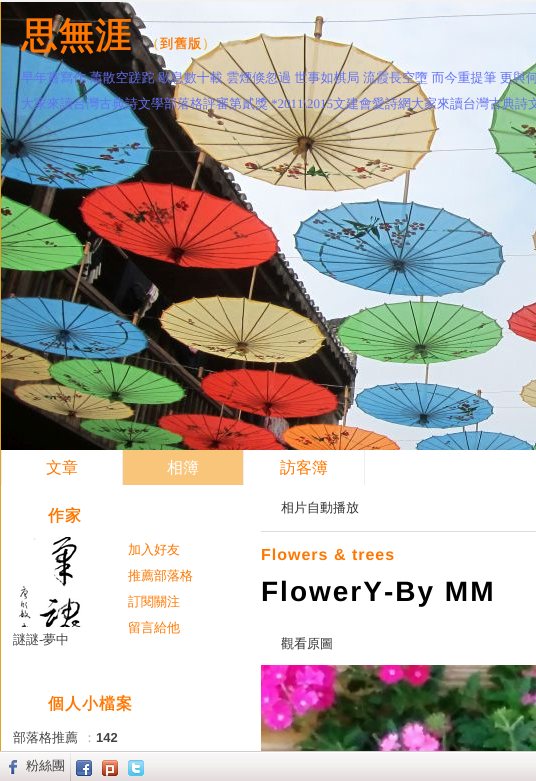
import math
import cairo


def use_color(cr, r, g, b):
  cr.set_source_rgb(r / 255, g / 255, b / 255)

def text(cr, x, y, s, family, size, color, bold=False, italic=False):
  cr.select_font_face(family, cairo.FONT_SLANT_ITALIC if italic else cairo.FONT_SLANT_NORMAL, cairo.FONT_WEIGHT_BOLD if bold else cairo.FONT_WEIGHT_NORMAL)
  cr.set_font_size(size)
  use_color(cr, *color)
  cr.move_to(x, y)
  cr.show_text(s)

def spaced_text(cr, x, y, s, letter, word):
  cr.move_to(x, y)
  for ch in s:
    cr.show_text(ch)
    cr.rel_move_to(letter + word * (ch == ' '), 0)

def box(cr, x, y, w, h, *color):
  use_color(cr, *color)
  cr.rectangle(x, y, w, h)
  cr.fill()

def picture(cr, path, x, y, w, h):
  cr.save()
  cr.set_source_surface(cairo.ImageSurface.create_from_png(path), x, y)
  cr.rectangle(x, y, w, h)
  cr.fill()
  cr.restore()

def draw(cr):
  use_color(cr, 255, 255, 255)
  cr.paint()
  box(cr, 0, 0, 1, 751, 224, 165, 39)
  box(cr, 0, 0, 536, 2, 242, 242, 242)
  picture(cr, "img_01.png", 1, 2, 535, 448)
  box(cr, 1, 450, 1, 35, 238, 238, 238)
  box(cr, 122, 450, 1, 35, 238, 238, 238)
  box(cr, 243, 450, 1, 35, 238, 238, 238)
  box(cr, 123, 450, 120, 35, 249, 197, 122)
  box(cr, 364, 450, 1, 35, 238, 238, 238)
  picture(cr, "img_02.png", 18, 537, 65, 90)
  box(cr, 261, 531, 275, 1, 221, 221, 221)
  picture(cr, "img_03.png", 261, 665, 275, 86)
  picture(cr, "img_04.png", 0, 751, 536, 30)
  picture(cr, "img_05.png", 9, 760, 8, 14)
  picture(cr, "img_06.png", 70, 753, 1, 28)
  picture(cr, "img_07.png", 76, 760, 16, 16)
  picture(cr, "img_08.png", 102, 760, 16, 16)
  picture(cr, "img_09.png", 128, 760, 16, 16)
  cr.select_font_face("WenQuanYi Zen Hei", cairo.FONT_SLANT_NORMAL, cairo.FONT_WEIGHT_BOLD)
  cr.set_font_size(36)
  use_color(cr, 255, 119, 0)
  spaced_text(cr, 21, 48, "思無涯", 1, 0)
  cr.set_font_size(13)
  use_color(cr, 240, 186, 60)
  spaced_text(cr, 146, 48, "（", 1, 0)
  use_color(cr, 255, 119, 0)
  spaced_text(cr, 160, 48, "到舊版", 1, 0)
  use_color(cr, 240, 186, 60)
  spaced_text(cr, 202, 48, "）", 1, 0)
  cr.select_font_face("WenQuanYi Zen Hei Medium")
  use_color(cr, 98, 112, 240)
  spaced_text(cr, 21, 82, "早年嘗寫作 蕭散空蹉跎 歇息數十載 雲煙倏忽過 世事如棋局 流霞長空墮 而今重提筆 更與何", 0, -0.5)
  text(cr, 21, 108, "大家來讀台灣古典詩文學部落格評審第貳獎", "WenQuanYi Zen Hei Medium", 13, (98, 112, 240))
  text(cr, 271, 108, "*2011\\2015", "Liberation Serif", 13, (98, 112, 240))
  text(cr, 333, 108, "文建會愛詩網大家來讀台灣古典詩文", "WenQuanYi Zen Hei Medium", 13, (98, 112, 240))
  text(cr, 46, 473, "文章", "WenQuanYi Zen Hei Medium", 16, (255, 119, 0))
  text(cr, 167, 473, "相簿", "WenQuanYi Zen Hei Medium", 16, (255, 255, 255))
  text(cr, 280, 473, "訪客簿", "WenQuanYi Zen Hei Medium", 16, (255, 119, 0))
  cr.select_font_face("WenQuanYi Zen Hei", cairo.FONT_SLANT_NORMAL, cairo.FONT_WEIGHT_BOLD)
  spaced_text(cr, 48, 521, "作家", 1, 0)
  text(cr, 128, 554, "加入好友", "WenQuanYi Zen Hei Medium", 13, (255, 119, 0))
  text(cr, 128, 580, "推薦部落格", "WenQuanYi Zen Hei Medium", 13, (255, 119, 0))
  text(cr, 128, 606, "訂閱關注", "WenQuanYi Zen Hei Medium", 13, (255, 119, 0))
  text(cr, 128, 632, "留言給他", "WenQuanYi Zen Hei Medium", 13, (255, 119, 0))
  text(cr, 13, 644, "謎謎", "WenQuanYi Zen Hei Medium", 13, (68, 68, 68))
  text(cr, 39, 644, "-", "Liberation Sans", 13, (68, 68, 68))
  text(cr, 43, 644, "夢中", "WenQuanYi Zen Hei Medium", 13, (68, 68, 68))
  cr.select_font_face("WenQuanYi Zen Hei", cairo.FONT_SLANT_NORMAL, cairo.FONT_WEIGHT_BOLD)
  cr.set_font_size(16)
  use_color(cr, 255, 119, 0)
  spaced_text(cr, 48, 709, "個人小檔案", 1, 0)
  text(cr, 13, 742, "部落格推薦", "WenQuanYi Zen Hei Medium", 13, (68, 68, 68))
  text(cr, 83, 742, "：", "WenQuanYi Zen Hei Medium", 13, (170, 170, 170))
  text(cr, 96, 742, "142", "Liberation Sans", 13, (68, 68, 68), bold=True)
  text(cr, 281, 512, "相片自動播放", "WenQuanYi Zen Hei Medium", 13, (51, 51, 51))
  cr.select_font_face("Liberation Sans", cairo.FONT_SLANT_NORMAL, cairo.FONT_WEIGHT_BOLD)
  cr.set_font_size(16)
  use_color(cr, 255, 119, 0)
  spaced_text(cr, 261, 560, "Flowers & trees", 1, 0)
  cr.set_font_size(28)
  use_color(cr, 0, 0, 0)
  spaced_text(cr, 261, 601, "FlowerY-By MM", 2, 0)
  text(cr, 281, 648, "觀看原圖", "WenQuanYi Zen Hei Medium", 13, (51, 51, 51))
  text(cr, 26, 770, "粉絲團", "WenQuanYi Zen Hei Medium", 13, (68, 68, 68))


surface = cairo.ImageSurface(cairo.FORMAT_RGB24, 536, 781)
cr = cairo.Context(surface)
options = cairo.FontOptions()
options.set_hint_metrics(cairo.HINT_METRICS_OFF)
options.set_hint_style(cairo.HINT_STYLE_NONE)
cr.set_font_options(options)
cr.set_miter_limit(4)
draw(cr)
surface.write_to_png("out.png")
